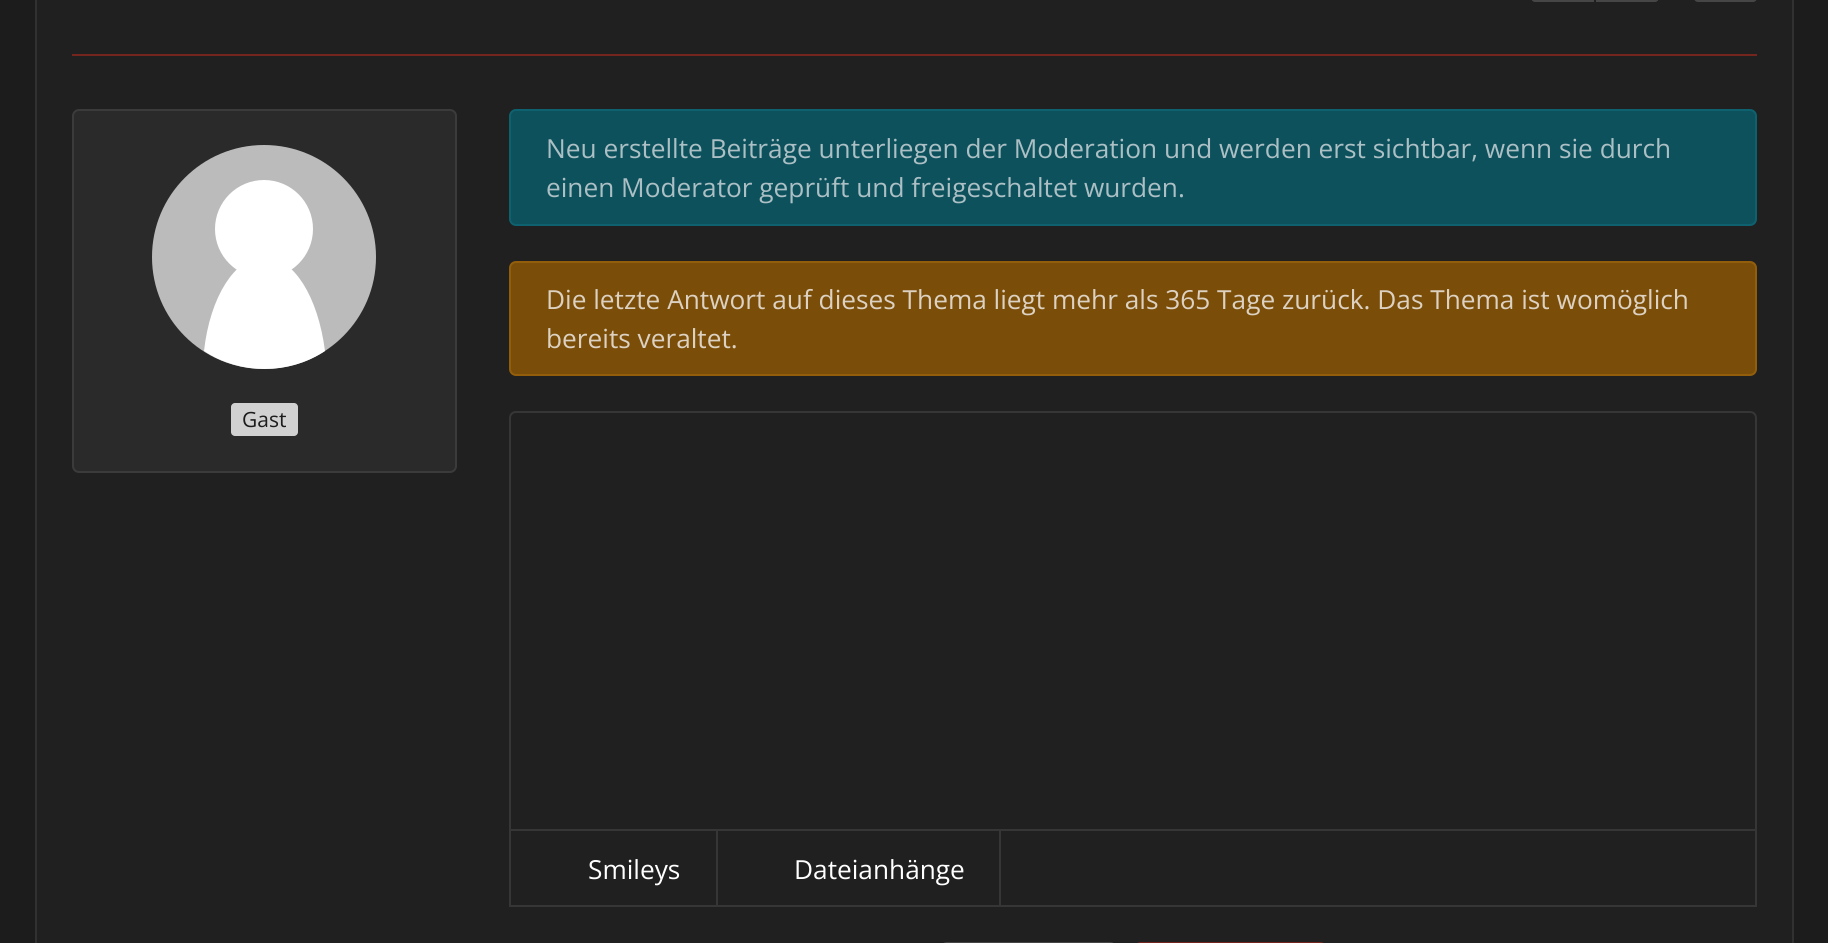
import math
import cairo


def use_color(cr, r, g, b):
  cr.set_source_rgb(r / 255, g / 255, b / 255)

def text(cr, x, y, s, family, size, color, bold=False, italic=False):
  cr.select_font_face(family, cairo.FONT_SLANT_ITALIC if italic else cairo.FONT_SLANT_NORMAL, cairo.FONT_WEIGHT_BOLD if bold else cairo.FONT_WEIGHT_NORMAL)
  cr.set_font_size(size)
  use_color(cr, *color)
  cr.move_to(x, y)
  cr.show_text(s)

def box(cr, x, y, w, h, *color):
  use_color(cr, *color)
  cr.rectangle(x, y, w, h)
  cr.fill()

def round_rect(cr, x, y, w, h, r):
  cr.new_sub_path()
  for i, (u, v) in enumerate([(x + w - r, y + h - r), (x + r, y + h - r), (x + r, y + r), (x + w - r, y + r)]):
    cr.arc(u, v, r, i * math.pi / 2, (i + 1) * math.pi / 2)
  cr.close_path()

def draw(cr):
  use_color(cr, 28, 28, 28)
  cr.paint()
  use_color(cr, 32, 32, 32)
  cr.rectangle(36, -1, 1757, 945)
  cr.fill_preserve()
  use_color(cr, 49, 49, 49)
  cr.stroke()
  box(cr, 72, 54, 1685, 2, 116, 38, 30)
  use_color(cr, 70, 70, 70)
  cr.new_path()
  cr.move_to(1535, -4)
  cr.line_to(1594, -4)
  cr.line_to(1594, 2)
  cr.line_to(1535, 2)
  cr.curve_to(1533, 2, 1531, 0, 1531, -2)
  cr.line_to(1531, 0)
  cr.curve_to(1531, -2, 1533, -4, 1535, -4)
  cr.close_path()
  cr.fill()
  cr.new_path()
  cr.move_to(1596, -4)
  cr.line_to(1655, -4)
  cr.curve_to(1657, -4, 1659, -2, 1659, 0)
  cr.line_to(1659, -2)
  cr.curve_to(1659, 0, 1657, 2, 1655, 2)
  cr.line_to(1596, 2)
  cr.close_path()
  cr.fill()
  round_rect(cr, 1694, -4, 63, 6, 4)
  cr.fill()
  use_color(cr, 42, 42, 42)
  round_rect(cr, 73, 110, 383, 362, 6)
  cr.fill_preserve()
  use_color(cr, 59, 59, 59)
  cr.stroke()
  use_color(cr, 187, 187, 187)
  cr.arc(264, 257, 112, 0, 2 * math.pi)
  cr.fill()
  use_color(cr, 255, 255, 255)
  cr.new_path()
  cr.move_to(325, 351)
  cr.curve_to(289, 375, 240, 375, 204, 351)
  cr.curve_to(210, 297, 235, 257, 264, 257)
  cr.curve_to(294, 257, 318, 297, 325, 351)
  cr.close_path()
  cr.fill()
  cr.arc(264, 229, 49, 0, 2 * math.pi)
  cr.fill()
  use_color(cr, 209, 209, 209)
  round_rect(cr, 231, 403, 67, 33, 4)
  cr.fill()
  use_color(cr, 12, 81, 92)
  round_rect(cr, 510, 110, 1246, 115, 6)
  cr.fill_preserve()
  use_color(cr, 14, 97, 110)
  cr.stroke()
  use_color(cr, 122, 78, 9)
  round_rect(cr, 510, 262, 1246, 113, 6)
  cr.fill_preserve()
  use_color(cr, 146, 94, 11)
  cr.stroke()
  cr.new_path()
  cr.move_to(516, 412)
  cr.line_to(1750, 412)
  cr.curve_to(1753.5, 412, 1756, 414.5, 1756, 418)
  cr.line_to(1756, 830)
  cr.line_to(510, 830)
  cr.line_to(510, 418)
  cr.curve_to(510, 414.5, 512.5, 412, 516, 412)
  cr.close_path()
  use_color(cr, 54, 54, 54)
  cr.stroke()
  box(cr, 1755, 831, 2, 76, 54, 54, 54)
  box(cr, 509, 905, 1248, 2, 54, 54, 54)
  box(cr, 509, 831, 2, 76, 54, 54, 54)
  box(cr, 716, 831, 2, 74, 54, 54, 54)
  box(cr, 999, 831, 2, 74, 54, 54, 54)
  use_color(cr, 70, 70, 70)
  round_rect(cr, 940, 942, 177, 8, 7)
  cr.fill()
  use_color(cr, 116, 38, 30)
  round_rect(cr, 1134, 942, 193, 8, 7)
  cr.fill()
  text(cr, 242, 427, "Gast", "Open Sans", 21, (28, 28, 28))
  text(cr, 546, 158, "Neu erstellte Beiträge unterliegen der Moderation und werden erst sichtbar, wenn sie durch", "Open Sans", 26.25, (171, 191, 196))
  text(cr, 546, 197, "einen Moderator geprüft und freigeschaltet wurden.", "Open Sans", 26.25, (171, 191, 196))
  text(cr, 546, 309, "Die letzte Antwort auf dieses Thema liegt mehr als 365 Tage zurück. Das Thema ist womöglich", "Open Sans", 26.25, (221, 209, 194))
  text(cr, 546, 348, "bereits veraltet.", "Open Sans", 26.25, (221, 209, 194))
  text(cr, 588, 879, "Smileys", "Open Sans", 26.25, (255, 255, 255))
  text(cr, 794, 879, "Dateianhänge", "Open Sans", 26.25, (255, 255, 255))


surface = cairo.ImageSurface(cairo.FORMAT_RGB24, 1828, 943)
cr = cairo.Context(surface)
options = cairo.FontOptions()
options.set_hint_metrics(cairo.HINT_METRICS_OFF)
options.set_hint_style(cairo.HINT_STYLE_NONE)
cr.set_font_options(options)
cr.set_miter_limit(4)
draw(cr)
surface.write_to_png("out.png")
